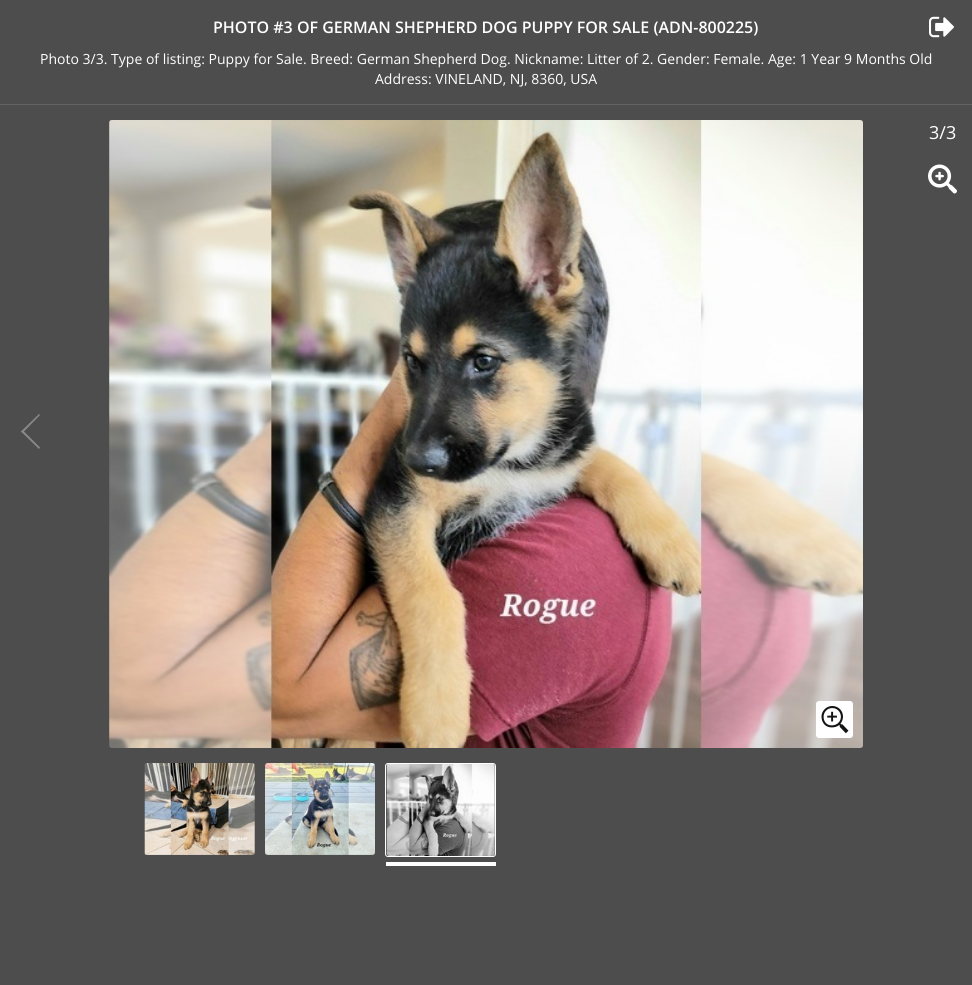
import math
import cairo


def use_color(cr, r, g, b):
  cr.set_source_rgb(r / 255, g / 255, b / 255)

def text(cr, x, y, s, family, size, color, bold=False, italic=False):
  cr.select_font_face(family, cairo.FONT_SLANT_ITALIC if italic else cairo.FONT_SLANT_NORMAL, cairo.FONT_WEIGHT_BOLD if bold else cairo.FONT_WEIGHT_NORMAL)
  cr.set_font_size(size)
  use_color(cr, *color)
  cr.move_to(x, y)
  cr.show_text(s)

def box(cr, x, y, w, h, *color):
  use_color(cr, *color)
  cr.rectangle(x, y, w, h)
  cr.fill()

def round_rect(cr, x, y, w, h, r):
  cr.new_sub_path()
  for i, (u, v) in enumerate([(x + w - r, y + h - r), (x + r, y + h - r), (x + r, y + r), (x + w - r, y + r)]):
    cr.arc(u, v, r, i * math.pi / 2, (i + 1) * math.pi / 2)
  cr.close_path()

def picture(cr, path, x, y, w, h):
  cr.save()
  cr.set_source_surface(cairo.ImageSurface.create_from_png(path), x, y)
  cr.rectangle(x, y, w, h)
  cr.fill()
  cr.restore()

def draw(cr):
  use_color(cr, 77, 77, 77)
  cr.paint()
  box(cr, 0, 104, 972, 1, 99, 99, 99)
  picture(cr, "img_01.png", 929, 16, 25, 22)
  picture(cr, "img_02.png", 109, 120, 754, 628)
  use_color(cr, 255, 255, 255)
  round_rect(cr, 816, 701, 37, 37, 3)
  cr.fill()
  picture(cr, "img_03.png", 821, 706, 28, 28)
  picture(cr, "img_04.png", 928, 164, 29, 30)
  use_color(cr, 137, 137, 137)
  cr.new_path()
  cr.move_to(39, 449)
  cr.line_to(21, 431.5)
  cr.line_to(22.5, 430)
  cr.line_to(40, 447.5)
  cr.close_path()
  cr.fill()
  cr.new_path()
  cr.move_to(22.5, 433)
  cr.line_to(21, 431.5)
  cr.line_to(39, 414)
  cr.line_to(40, 415)
  cr.close_path()
  cr.fill()
  picture(cr, "img_05.png", 144, 763, 111, 92)
  picture(cr, "img_06.png", 265, 763, 110, 92)
  round_rect(cr, 385.5, 763.5, 110, 93, 2.5)
  use_color(cr, 255, 255, 255)
  cr.set_line_width(1)
  cr.stroke()
  picture(cr, "img_07.png", 386, 764, 109, 92)
  box(cr, 386, 862, 110, 4, 255, 255, 255)
  text(cr, 213, 33, "PHOTO #3 OF GERMAN SHEPHERD DOG PUPPY FOR SALE (ADN-800225)", "Open Sans SemiBold", 16, (255, 255, 255))
  text(cr, 40, 64, "Photo 3/3. Type of listing: Puppy for Sale. Breed: German Shepherd Dog. Nickname: Litter of 2. Gender: Female. Age: 1 Year 9 Months Old", "Open Sans", 14, (255, 255, 255))
  text(cr, 375, 84, "Address: VINELAND, NJ, 8360, USA", "Open Sans", 14, (255, 255, 255))
  text(cr, 929, 139, "3/3", "Open Sans", 18, (255, 255, 255))


surface = cairo.ImageSurface(cairo.FORMAT_RGB24, 972, 985)
cr = cairo.Context(surface)
options = cairo.FontOptions()
options.set_hint_metrics(cairo.HINT_METRICS_OFF)
options.set_hint_style(cairo.HINT_STYLE_NONE)
cr.set_font_options(options)
cr.set_miter_limit(4)
draw(cr)
surface.write_to_png("out.png")
